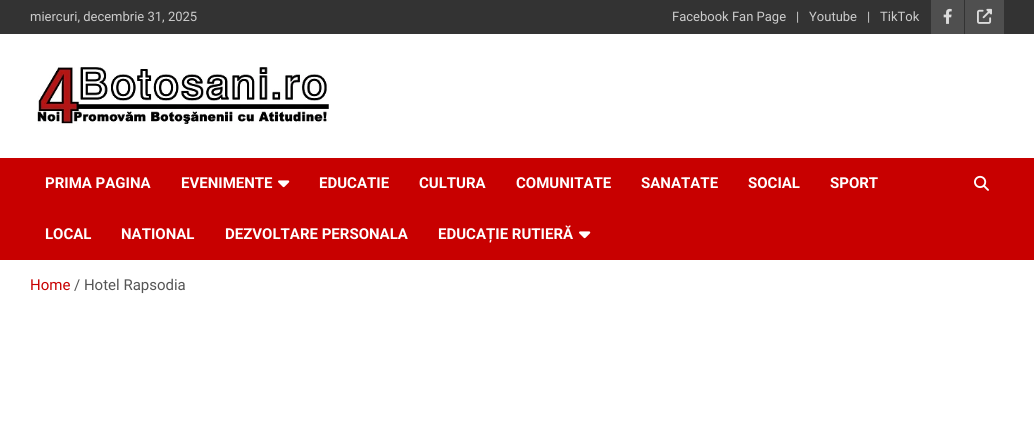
import math
import cairo


def use_color(cr, r, g, b):
  cr.set_source_rgb(r / 255, g / 255, b / 255)

def text(cr, x, y, s, family, size, color, bold=False, italic=False):
  cr.select_font_face(family, cairo.FONT_SLANT_ITALIC if italic else cairo.FONT_SLANT_NORMAL, cairo.FONT_WEIGHT_BOLD if bold else cairo.FONT_WEIGHT_NORMAL)
  cr.set_font_size(size)
  use_color(cr, *color)
  cr.move_to(x, y)
  cr.show_text(s)

def box(cr, x, y, w, h, *color):
  use_color(cr, *color)
  cr.rectangle(x, y, w, h)
  cr.fill()

def picture(cr, path, x, y, w, h):
  cr.save()
  cr.set_source_surface(cairo.ImageSurface.create_from_png(path), x, y)
  cr.rectangle(x, y, w, h)
  cr.fill()
  cr.restore()

def draw(cr):
  use_color(cr, 255, 255, 255)
  cr.paint()
  box(cr, 0, 0, 1034, 34, 51, 51, 51)
  box(cr, 931, 0, 33, 34, 79, 79, 79)
  picture(cr, "img_01.png", 943, 8, 9, 16)
  box(cr, 965, 0, 39, 34, 79, 79, 79)
  picture(cr, "img_02.png", 977, 8, 15, 16)
  picture(cr, "img_03.png", 37, 67, 292, 57)
  box(cr, 0, 158, 1034, 102, 200, 0, 0)
  picture(cr, "img_04.png", 278, 180, 12, 8)
  picture(cr, "img_04.png", 579, 231, 12, 8)
  picture(cr, "img_05.png", 974, 175, 15, 16)
  text(cr, 30, 21, "miercuri, decembrie 31, 2025", "Roboto", 13, (204, 204, 204))
  text(cr, 672, 21, "Facebook Fan Page", "Roboto", 13, (204, 204, 204))
  text(cr, 796, 21, "|", "Roboto", 13, (204, 204, 204))
  text(cr, 809, 21, "Youtube", "Roboto", 13, (204, 204, 204))
  text(cr, 867, 21, "|", "Roboto", 13, (204, 204, 204))
  text(cr, 880, 21, "TikTok", "Roboto", 13, (204, 204, 204))
  text(cr, 45, 188, "PRIMA PAGINA", "Roboto", 15, (255, 255, 255), bold=True)
  text(cr, 181, 188, "EVENIMENTE", "Roboto", 15, (255, 255, 255), bold=True)
  text(cr, 319, 188, "EDUCATIE", "Roboto", 15, (255, 255, 255), bold=True)
  text(cr, 419, 188, "CULTURA", "Roboto", 15, (255, 255, 255), bold=True)
  text(cr, 516, 188, "COMUNITATE", "Roboto", 15, (255, 255, 255), bold=True)
  text(cr, 641, 188, "SANATATE", "Roboto", 15, (255, 255, 255), bold=True)
  text(cr, 748, 188, "SOCIAL", "Roboto", 15, (255, 255, 255), bold=True)
  text(cr, 830, 188, "SPORT", "Roboto", 15, (255, 255, 255), bold=True)
  text(cr, 45, 239, "LOCAL", "Roboto", 15, (255, 255, 255), bold=True)
  text(cr, 121, 239, "NATIONAL", "Roboto", 15, (255, 255, 255), bold=True)
  text(cr, 225, 239, "DEZVOLTARE PERSONALA", "Roboto", 15, (255, 255, 255), bold=True)
  text(cr, 438, 239, "EDUCAȚIE RUTIERĂ", "Roboto", 15, (255, 255, 255), bold=True)
  text(cr, 30, 290, "Home", "Roboto", 15, (200, 0, 0))
  text(cr, 74, 290, "/ Hotel Rapsodia", "Roboto", 15, (85, 85, 85))


surface = cairo.ImageSurface(cairo.FORMAT_RGB24, 1034, 427)
cr = cairo.Context(surface)
options = cairo.FontOptions()
options.set_hint_metrics(cairo.HINT_METRICS_OFF)
options.set_hint_style(cairo.HINT_STYLE_NONE)
cr.set_font_options(options)
cr.set_miter_limit(4)
draw(cr)
surface.write_to_png("out.png")
